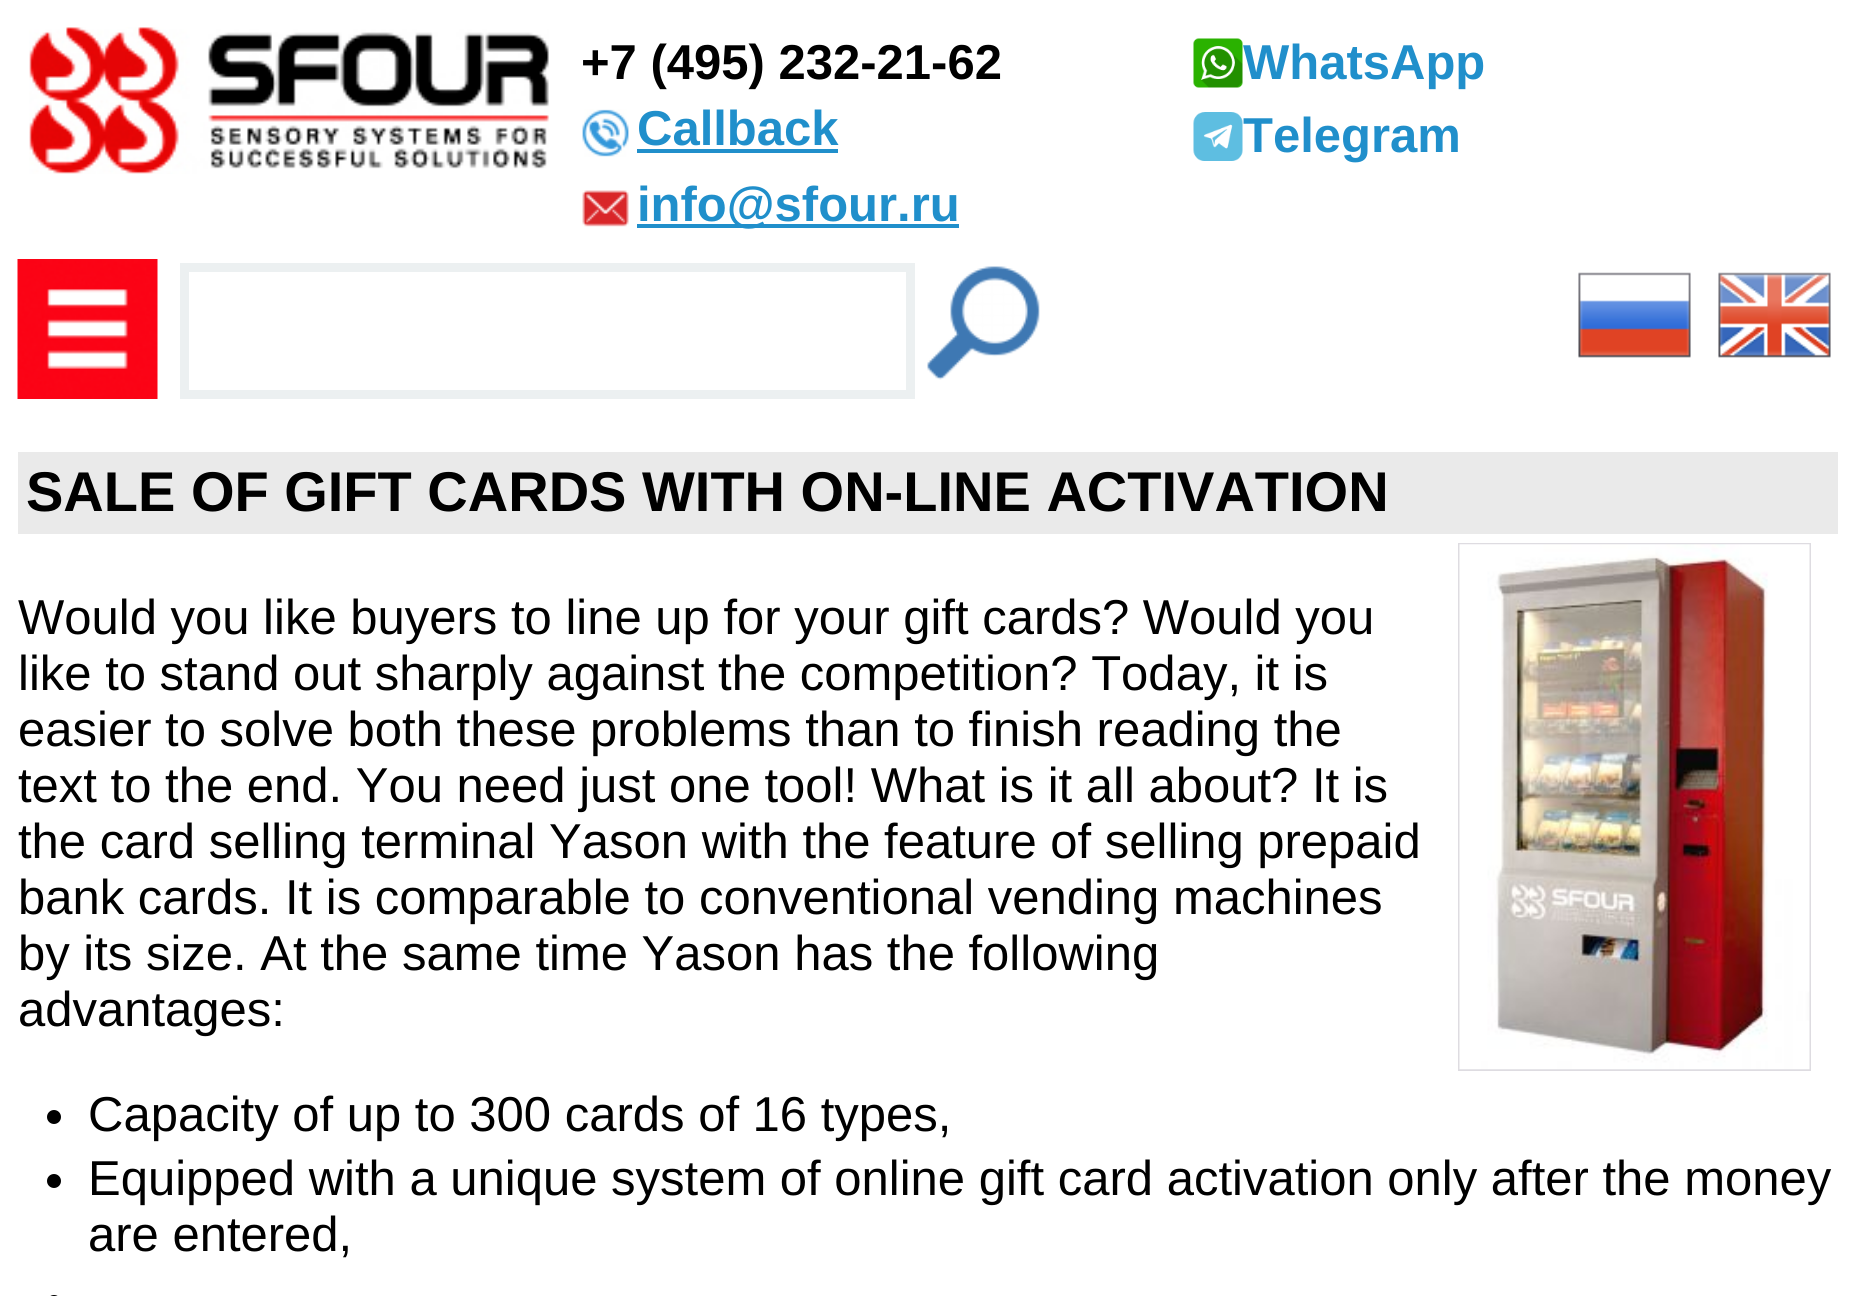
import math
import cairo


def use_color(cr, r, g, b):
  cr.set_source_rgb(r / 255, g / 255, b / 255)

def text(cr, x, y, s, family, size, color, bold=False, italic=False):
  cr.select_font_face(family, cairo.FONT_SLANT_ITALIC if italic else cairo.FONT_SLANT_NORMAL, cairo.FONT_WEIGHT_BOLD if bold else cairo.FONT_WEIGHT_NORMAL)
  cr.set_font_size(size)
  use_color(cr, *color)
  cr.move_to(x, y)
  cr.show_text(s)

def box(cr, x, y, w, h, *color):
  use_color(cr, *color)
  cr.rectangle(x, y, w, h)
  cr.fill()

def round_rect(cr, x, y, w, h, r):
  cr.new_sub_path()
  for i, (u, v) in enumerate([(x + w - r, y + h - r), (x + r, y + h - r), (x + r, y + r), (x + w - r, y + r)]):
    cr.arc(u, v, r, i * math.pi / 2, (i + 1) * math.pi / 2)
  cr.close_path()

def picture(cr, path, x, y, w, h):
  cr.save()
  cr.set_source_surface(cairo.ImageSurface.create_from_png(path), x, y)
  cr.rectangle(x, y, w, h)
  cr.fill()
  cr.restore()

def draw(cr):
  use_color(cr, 255, 255, 255)
  cr.paint()
  picture(cr, "img_01.png", 29, 27, 520, 147)
  picture(cr, "img_02.png", 582, 109, 47, 48)
  box(cr, 637, 149, 201, 4, 32, 143, 203)
  picture(cr, "img_03.png", 582, 190, 47, 37)
  box(cr, 637, 224, 322, 4, 32, 143, 203)
  picture(cr, "img_04.png", 1193, 38, 50, 50)
  picture(cr, "img_05.png", 1193, 112, 50, 49)
  picture(cr, "img_06.png", 17, 259, 141, 140)
  cr.rectangle(184.5, 267.5, 726, 127)
  use_color(cr, 236, 240, 241)
  cr.set_line_width(9)
  cr.stroke()
  picture(cr, "img_07.png", 927, 266, 113, 114)
  picture(cr, "img_08.png", 1578, 272, 113, 86)
  picture(cr, "img_09.png", 1718, 272, 113, 86)
  box(cr, 18, 452, 1820, 82, 234, 234, 234)
  cr.rectangle(1459, 544, 351, 526)
  use_color(cr, 222, 220, 225)
  cr.set_line_width(2)
  cr.stroke()
  picture(cr, "img_10.png", 1459, 544, 351, 526)
  use_color(cr, 0, 0, 0)
  cr.arc(54, 1117, 7, 0, 2 * math.pi)
  cr.fill()
  cr.arc(54, 1181, 7, 0, 2 * math.pi)
  cr.fill()
  round_rect(cr, 47, 1295, 14, 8, 7)
  cr.fill()
  text(cr, 581, 79, "+7 (495) 232-21-62", "Liberation Sans", 49, (0, 0, 0), bold=True)
  text(cr, 637, 145, "Callback", "Liberation Sans", 49, (32, 143, 203), bold=True)
  text(cr, 637, 221, "info@sfour.ru", "Liberation Sans", 49, (32, 143, 203), bold=True)
  text(cr, 1243, 79, "WhatsApp", "Liberation Sans", 49, (32, 143, 203), bold=True)
  text(cr, 1243, 152, "Telegram", "Liberation Sans", 49, (32, 143, 203), bold=True)
  text(cr, 26, 511, "SALE OF GIFT CARDS WITH ON-LINE ACTIVATION", "Liberation Sans", 56, (0, 0, 0), bold=True)
  text(cr, 18, 634, "Would you like buyers to line up for your gift cards? Would you", "Liberation Sans", 49, (0, 0, 0))
  text(cr, 18, 690, "like to stand out sharply against the competition? Today, it is", "Liberation Sans", 49, (0, 0, 0))
  text(cr, 18, 746, "easier to solve both these problems than to finish reading the", "Liberation Sans", 49, (0, 0, 0))
  text(cr, 18, 802, "text to the end. You need just one tool! What is it all about? It is", "Liberation Sans", 49, (0, 0, 0))
  text(cr, 18, 858, "the card selling terminal Yason with the feature of selling prepaid", "Liberation Sans", 49, (0, 0, 0))
  text(cr, 18, 914, "bank cards. It is comparable to conventional vending machines", "Liberation Sans", 49, (0, 0, 0))
  text(cr, 18, 970, "by its size. At the same time Yason has the following", "Liberation Sans", 49, (0, 0, 0))
  text(cr, 18, 1026, "advantages:", "Liberation Sans", 49, (0, 0, 0))
  text(cr, 88, 1131, "Capacity of up to 300 cards of 16 types,", "Liberation Sans", 49, (0, 0, 0))
  text(cr, 88, 1195, "Equipped with a unique system of online gift card activation only after the money", "Liberation Sans", 49, (0, 0, 0))
  text(cr, 88, 1251, "are entered,", "Liberation Sans", 49, (0, 0, 0))


surface = cairo.ImageSurface(cairo.FORMAT_RGB24, 1855, 1296)
cr = cairo.Context(surface)
options = cairo.FontOptions()
options.set_hint_metrics(cairo.HINT_METRICS_OFF)
options.set_hint_style(cairo.HINT_STYLE_NONE)
cr.set_font_options(options)
cr.set_miter_limit(4)
draw(cr)
surface.write_to_png("out.png")
